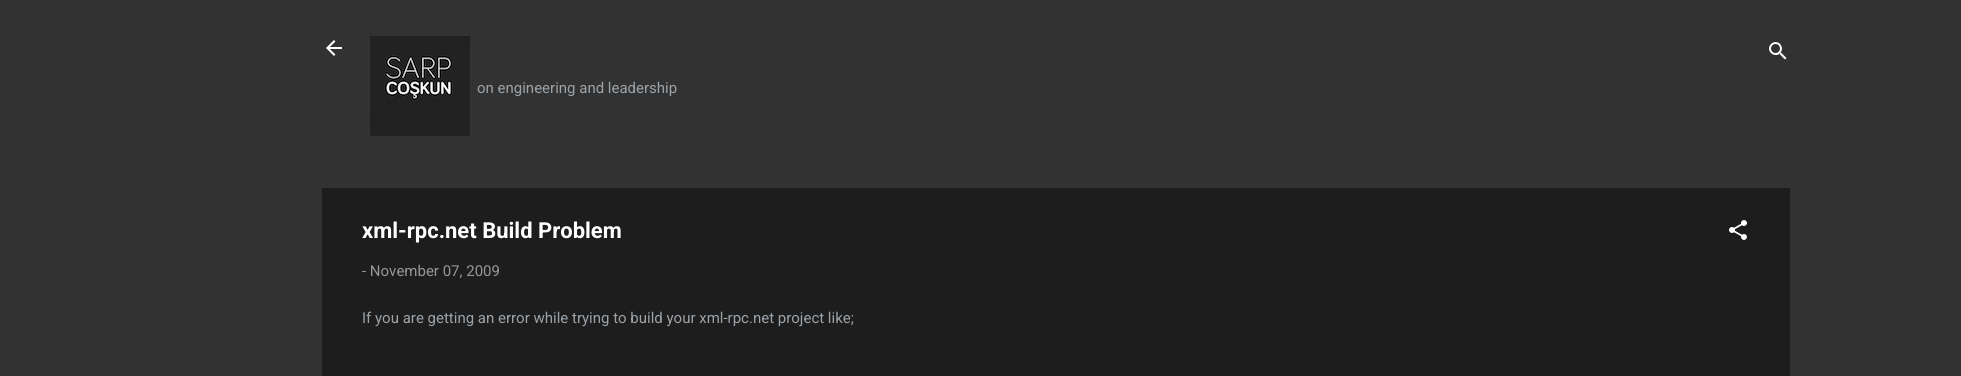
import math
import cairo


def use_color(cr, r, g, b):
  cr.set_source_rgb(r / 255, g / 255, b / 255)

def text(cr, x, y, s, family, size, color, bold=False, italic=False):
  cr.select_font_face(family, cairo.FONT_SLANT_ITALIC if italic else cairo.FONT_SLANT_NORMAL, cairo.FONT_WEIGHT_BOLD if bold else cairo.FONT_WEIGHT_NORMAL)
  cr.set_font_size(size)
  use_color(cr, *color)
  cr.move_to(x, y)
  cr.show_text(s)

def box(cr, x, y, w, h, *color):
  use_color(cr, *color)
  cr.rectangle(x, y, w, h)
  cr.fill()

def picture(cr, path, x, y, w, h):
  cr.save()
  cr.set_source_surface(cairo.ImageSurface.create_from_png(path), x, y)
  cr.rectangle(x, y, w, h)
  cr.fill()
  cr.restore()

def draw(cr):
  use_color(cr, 50, 50, 50)
  cr.paint()
  picture(cr, "img_01.png", 326, 40, 16, 16)
  picture(cr, "img_02.png", 1769, 42, 18, 18)
  picture(cr, "img_03.png", 370, 36, 100, 100)
  box(cr, 322, 188, 1468, 188, 29, 29, 29)
  picture(cr, "img_04.png", 1729, 220, 18, 20)
  text(cr, 477, 93, "on engineering and leadership", "Roboto", 15, (155, 162, 168))
  text(cr, 362, 238, "xml-rpc.net Build Problem", "Roboto", 22, (255, 255, 255), bold=True)
  text(cr, 362, 276, "- November 07, 2009", "Roboto", 15, (151, 151, 151))
  text(cr, 362, 323, "If you are getting an error while trying to build your xml-rpc.net project like;", "Roboto", 15, (155, 162, 168))


surface = cairo.ImageSurface(cairo.FORMAT_RGB24, 1961, 376)
cr = cairo.Context(surface)
options = cairo.FontOptions()
options.set_hint_metrics(cairo.HINT_METRICS_OFF)
options.set_hint_style(cairo.HINT_STYLE_NONE)
cr.set_font_options(options)
cr.set_miter_limit(4)
draw(cr)
surface.write_to_png("out.png")
